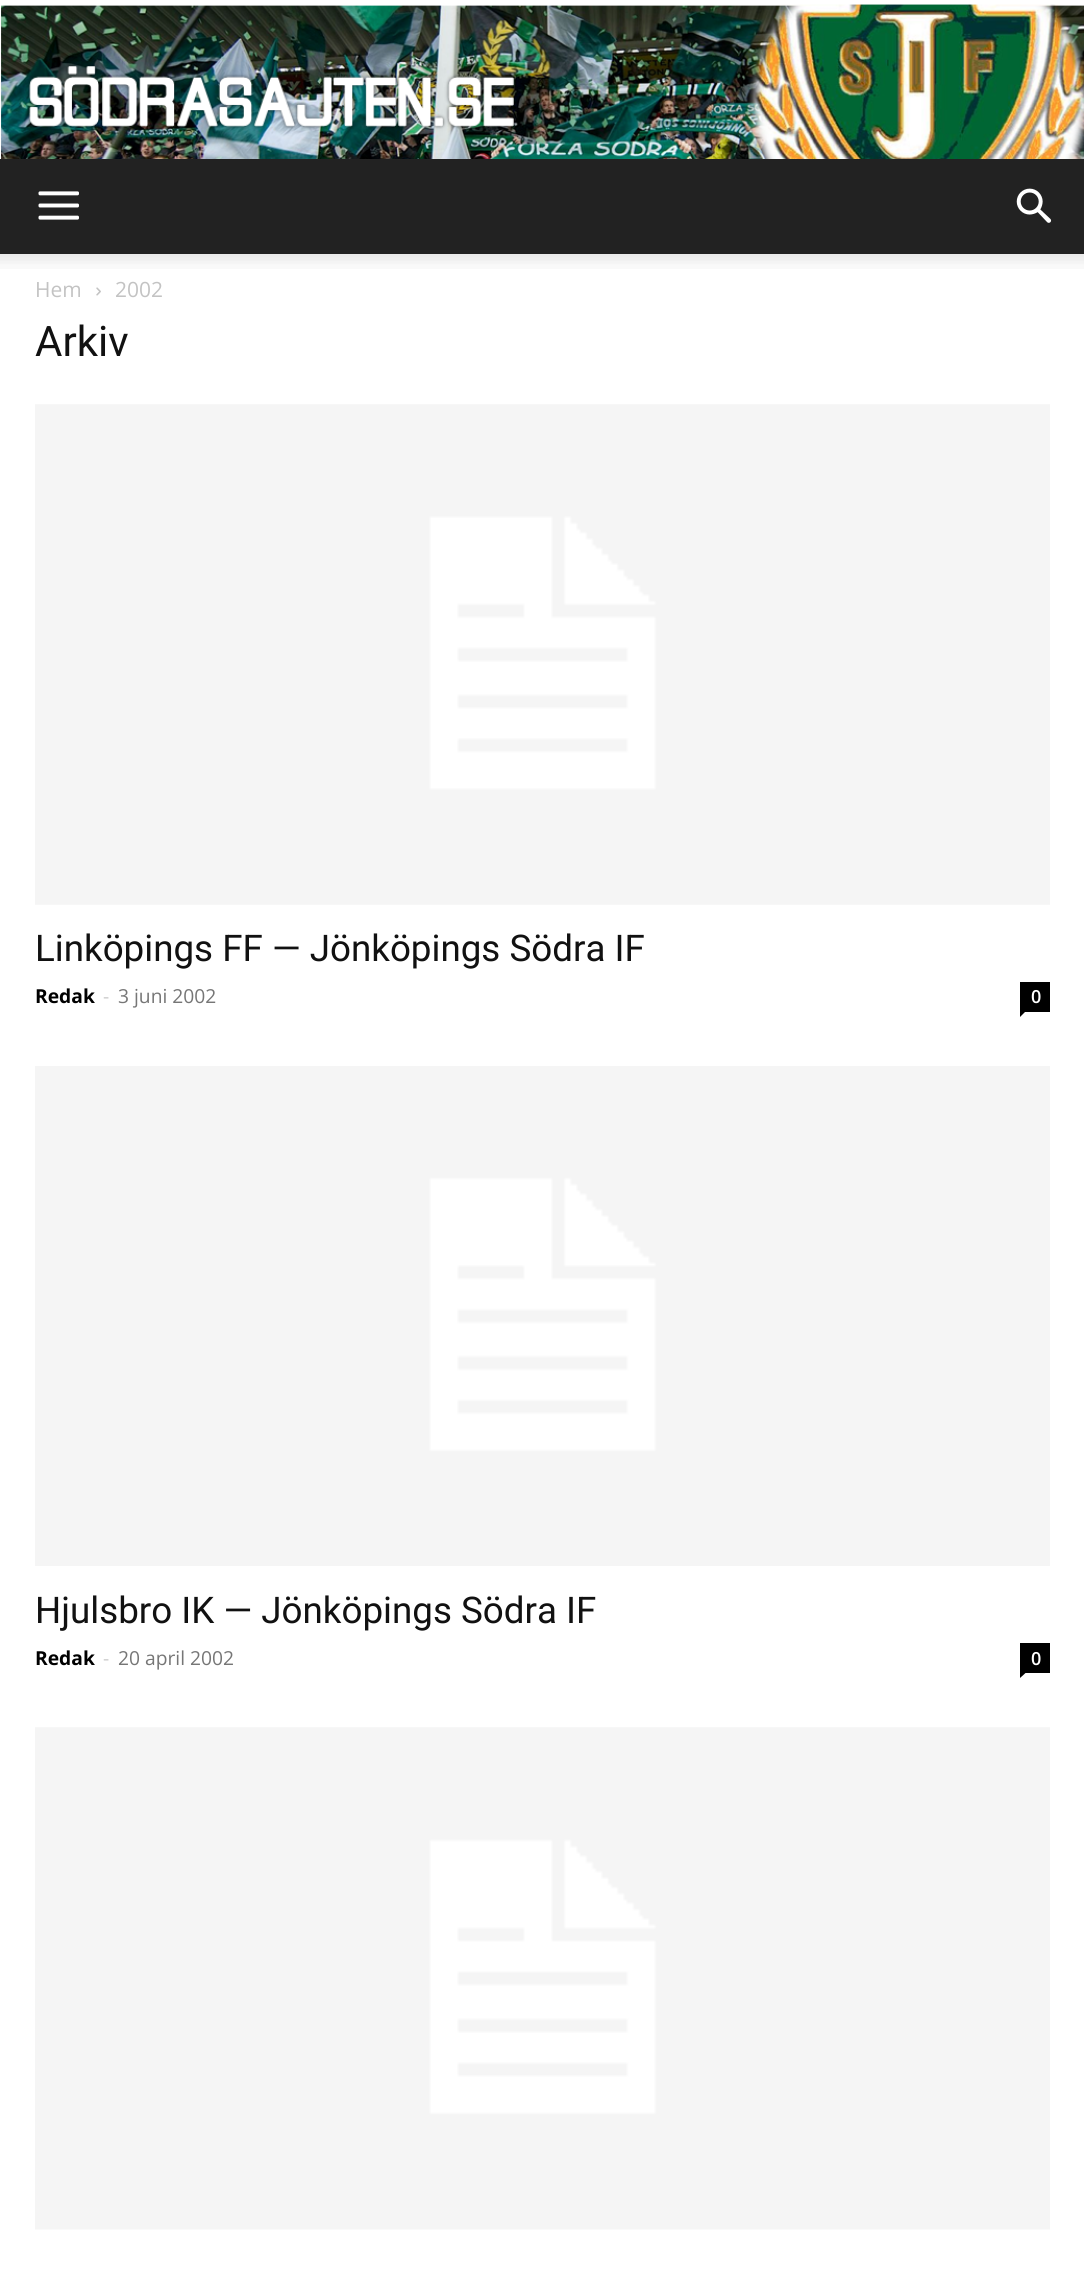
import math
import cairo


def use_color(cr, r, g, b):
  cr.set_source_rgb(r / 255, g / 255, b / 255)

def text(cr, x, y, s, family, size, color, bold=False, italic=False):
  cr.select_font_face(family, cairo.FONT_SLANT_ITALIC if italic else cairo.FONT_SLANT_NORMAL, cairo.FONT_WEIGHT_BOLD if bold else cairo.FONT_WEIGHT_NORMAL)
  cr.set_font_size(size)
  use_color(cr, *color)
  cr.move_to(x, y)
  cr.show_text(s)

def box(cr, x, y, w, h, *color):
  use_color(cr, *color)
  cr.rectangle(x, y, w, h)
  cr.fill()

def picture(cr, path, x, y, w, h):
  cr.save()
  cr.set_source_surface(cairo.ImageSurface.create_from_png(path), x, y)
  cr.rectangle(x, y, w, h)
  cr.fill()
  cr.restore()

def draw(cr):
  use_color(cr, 255, 255, 255)
  cr.paint()
  picture(cr, "img_01.png", 0, 4, 1084, 155)
  box(cr, 0, 159, 1084, 95, 34, 34, 34)
  picture(cr, "img_02.png", 38, 191, 41, 29)
  picture(cr, "img_03.png", 1016, 188, 36, 35)
  picture(cr, "img_04.png", 0, 254, 1084, 15)
  picture(cr, "img_05.png", 96, 287, 5, 9)
  picture(cr, "img_06.png", 35, 404, 1015, 501)
  box(cr, 1020, 982, 30, 30, 0, 0, 0)
  cr.new_path()
  cr.move_to(1020, 1011.5)
  cr.line_to(1025.5, 1011.5)
  cr.line_to(1020, 1017)
  cr.close_path()
  cr.fill()
  picture(cr, "img_07.png", 35, 1066, 1015, 500)
  box(cr, 1020, 1643, 30, 30, 0, 0, 0)
  cr.new_path()
  cr.move_to(1020, 1673)
  cr.line_to(1025.5, 1673)
  cr.line_to(1020, 1678)
  cr.close_path()
  cr.fill()
  picture(cr, "img_08.png", 35, 1727, 1015, 503)
  text(cr, 35, 297, "Hem", "Open Sans", 21, (195, 195, 195))
  text(cr, 115, 297, "2002", "Open Sans", 21, (195, 195, 195))
  text(cr, 35, 356, "Arkiv", "Roboto", 42, (17, 17, 17))
  text(cr, 35, 961, "Linköpings FF — Jönköpings Södra IF", "Roboto", 36.75, (17, 17, 17))
  text(cr, 35, 1003, "Redak", "Open Sans", 19.25, (0, 0, 0), bold=True)
  text(cr, 103, 1003, "-", "Open Sans", 19.25, (204, 204, 204))
  text(cr, 118, 1003, "3 juni 2002", "Open Sans", 19.25, (118, 118, 118))
  text(cr, 1031, 1003, "0", "Open Sans SemiBold", 18, (255, 255, 255))
  text(cr, 35, 1623, "Hjulsbro IK — Jönköpings Södra IF", "Roboto", 36.75, (17, 17, 17))
  text(cr, 35, 1665, "Redak", "Open Sans", 19.25, (0, 0, 0), bold=True)
  text(cr, 103, 1665, "-", "Open Sans", 19.25, (204, 204, 204))
  text(cr, 118, 1665, "20 april 2002", "Open Sans", 19.25, (118, 118, 118))
  text(cr, 1031, 1665, "0", "Open Sans SemiBold", 18, (255, 255, 255))


surface = cairo.ImageSurface(cairo.FORMAT_RGB24, 1084, 2273)
cr = cairo.Context(surface)
options = cairo.FontOptions()
options.set_hint_metrics(cairo.HINT_METRICS_OFF)
options.set_hint_style(cairo.HINT_STYLE_NONE)
cr.set_font_options(options)
cr.set_miter_limit(4)
draw(cr)
surface.write_to_png("out.png")
